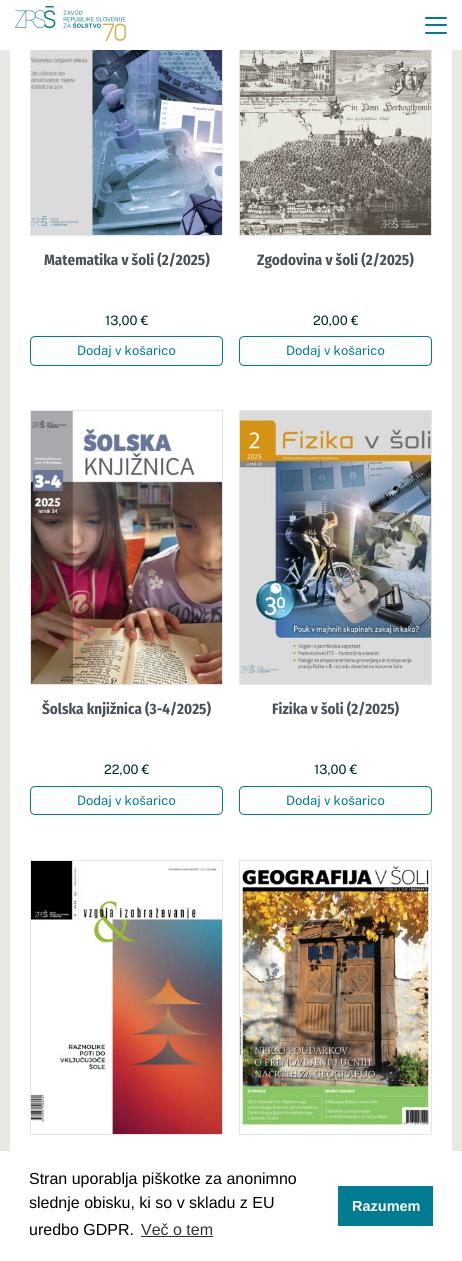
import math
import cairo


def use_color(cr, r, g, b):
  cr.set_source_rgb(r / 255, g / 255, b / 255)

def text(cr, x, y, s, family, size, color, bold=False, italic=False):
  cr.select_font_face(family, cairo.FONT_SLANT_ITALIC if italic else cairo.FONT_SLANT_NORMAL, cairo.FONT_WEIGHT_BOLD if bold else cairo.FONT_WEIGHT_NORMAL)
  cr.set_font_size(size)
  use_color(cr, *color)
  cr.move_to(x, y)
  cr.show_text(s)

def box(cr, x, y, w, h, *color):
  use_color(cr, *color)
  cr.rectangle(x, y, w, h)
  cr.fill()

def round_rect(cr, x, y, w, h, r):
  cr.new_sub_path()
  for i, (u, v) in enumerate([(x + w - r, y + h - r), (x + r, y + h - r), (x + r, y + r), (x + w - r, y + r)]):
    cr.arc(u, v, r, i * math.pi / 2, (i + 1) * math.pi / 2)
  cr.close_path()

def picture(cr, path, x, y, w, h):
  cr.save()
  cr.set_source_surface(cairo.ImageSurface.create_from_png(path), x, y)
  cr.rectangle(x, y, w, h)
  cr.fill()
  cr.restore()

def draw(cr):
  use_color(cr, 233, 232, 226)
  cr.paint()
  box(cr, 10, 50, 442, 1101, 255, 255, 255)
  cr.rectangle(30.5, -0.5, 192, 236)
  use_color(cr, 230, 230, 230)
  cr.set_line_width(1)
  cr.stroke()
  cr.rectangle(239.5, -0.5, 192, 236)
  cr.stroke()
  box(cr, 0, 0, 462, 50, 255, 255, 255)
  picture(cr, "img_01.png", 15, 6, 111, 35)
  use_color(cr, 0, 124, 146)
  round_rect(cr, 425, 24, 22, 2, 1)
  cr.fill()
  round_rect(cr, 425, 17, 22, 2, 1)
  cr.fill()
  round_rect(cr, 425, 32, 22, 2, 1)
  cr.fill()
  picture(cr, "img_02.png", 31, 50, 191, 185)
  round_rect(cr, 30.5, 336.5, 192, 29, 4.5)
  cr.stroke()
  picture(cr, "img_03.png", 240, 50, 191, 185)
  round_rect(cr, 239.5, 336.5, 192, 29, 4.5)
  cr.stroke()
  cr.rectangle(30.5, 410.5, 192, 274)
  use_color(cr, 230, 230, 230)
  cr.stroke()
  picture(cr, "img_04.png", 31, 411, 191, 273)
  round_rect(cr, 30.5, 786.5, 192, 28, 4.5)
  use_color(cr, 0, 124, 146)
  cr.stroke()
  cr.rectangle(239.5, 410.5, 192, 274)
  use_color(cr, 230, 230, 230)
  cr.stroke()
  picture(cr, "img_05.png", 240, 411, 191, 273)
  round_rect(cr, 239.5, 786.5, 192, 28, 4.5)
  use_color(cr, 0, 124, 146)
  cr.stroke()
  cr.rectangle(30.5, 860.5, 192, 274)
  use_color(cr, 230, 230, 230)
  cr.stroke()
  picture(cr, "img_06.png", 31, 861, 191, 273)
  cr.rectangle(239.5, 860.5, 192, 274)
  cr.stroke()
  picture(cr, "img_07.png", 240, 866, 189, 260)
  box(cr, 0, 1151, 462, 110, 255, 255, 255)
  box(cr, 141, 1236, 72, 1, 51, 51, 51)
  box(cr, 338, 1186, 95, 40, 0, 124, 146)
  text(cr, 44, 265, "Matematika v šoli (2/2025)", "Fira Sans Condensed", 15, (73, 80, 87), bold=True)
  text(cr, 105, 325, "13,00 €", "Public Sans Thin", 13, (0, 37, 44))
  text(cr, 77, 355, "Dodaj v košarico", "Public Sans Thin", 13, (0, 124, 146))
  text(cr, 257, 265, "Zgodovina v šoli (2/2025)", "Fira Sans Condensed", 15, (73, 80, 87), bold=True)
  text(cr, 313, 325, "20,00 €", "Public Sans Thin", 13, (0, 37, 44))
  text(cr, 286, 355, "Dodaj v košarico", "Public Sans Thin", 13, (0, 124, 146))
  text(cr, 42, 714, "Šolska knjižnica (3-4/2025)", "Fira Sans Condensed", 15, (73, 80, 87), bold=True)
  text(cr, 104, 774, "22,00 €", "Public Sans Thin", 13, (0, 37, 44))
  text(cr, 77, 805, "Dodaj v košarico", "Public Sans Thin", 13, (0, 124, 146))
  text(cr, 272, 714, "Fizika v šoli (2/2025)", "Fira Sans Condensed", 15, (73, 80, 87), bold=True)
  text(cr, 314, 774, "13,00 €", "Public Sans Thin", 13, (0, 37, 44))
  text(cr, 286, 805, "Dodaj v košarico", "Public Sans Thin", 13, (0, 124, 146))
  text(cr, 29, 1184, "Stran uporablja piškotke za anonimno", "Liberation Sans", 16, (0, 0, 0))
  text(cr, 29, 1208, "slednje obisku, ki so v skladu z EU", "Liberation Sans", 16, (0, 0, 0))
  text(cr, 29, 1235, "uredbo GDPR.", "Liberation Sans", 16, (0, 0, 0))
  text(cr, 141, 1235, "Več o tem", "Liberation Sans", 16, (51, 51, 51))
  text(cr, 352, 1211, "Razumem", "Liberation Sans", 14.5, (255, 255, 255), bold=True)


surface = cairo.ImageSurface(cairo.FORMAT_RGB24, 462, 1261)
cr = cairo.Context(surface)
options = cairo.FontOptions()
options.set_hint_metrics(cairo.HINT_METRICS_OFF)
options.set_hint_style(cairo.HINT_STYLE_NONE)
cr.set_font_options(options)
cr.set_miter_limit(4)
draw(cr)
surface.write_to_png("out.png")
